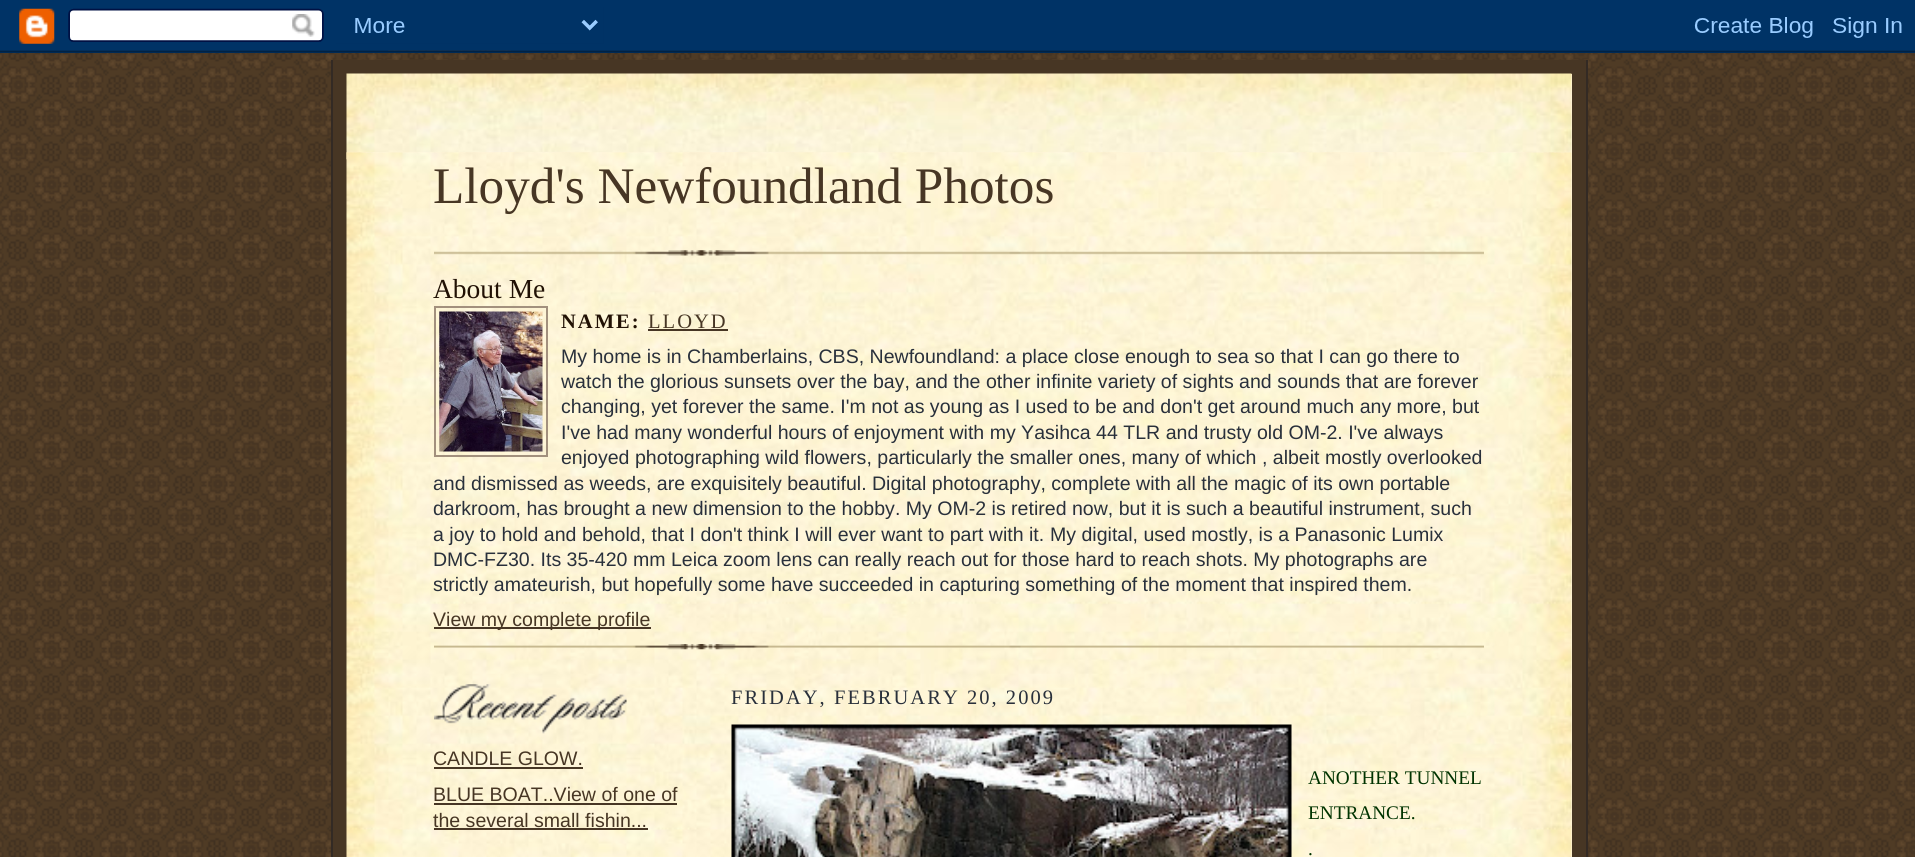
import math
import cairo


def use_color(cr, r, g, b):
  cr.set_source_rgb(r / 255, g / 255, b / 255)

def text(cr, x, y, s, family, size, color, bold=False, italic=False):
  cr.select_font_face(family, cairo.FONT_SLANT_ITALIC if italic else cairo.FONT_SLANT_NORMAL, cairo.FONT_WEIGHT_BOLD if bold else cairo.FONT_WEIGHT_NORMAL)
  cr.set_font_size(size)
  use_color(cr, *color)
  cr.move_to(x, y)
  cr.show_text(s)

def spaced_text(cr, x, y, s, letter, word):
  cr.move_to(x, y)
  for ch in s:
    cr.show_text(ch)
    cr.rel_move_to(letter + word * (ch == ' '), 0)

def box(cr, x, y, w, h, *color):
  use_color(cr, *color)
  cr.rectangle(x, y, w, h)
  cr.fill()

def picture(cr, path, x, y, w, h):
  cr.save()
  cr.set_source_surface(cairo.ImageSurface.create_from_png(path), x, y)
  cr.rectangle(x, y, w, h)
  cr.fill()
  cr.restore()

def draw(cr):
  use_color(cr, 255, 255, 255)
  cr.paint()
  picture(cr, "img_01.png", 0, 50, 1915, 807)
  picture(cr, "img_02.png", 0, 0, 1915, 53)
  box(cr, 333, 60, 1253, 797, 71, 54, 36)
  box(cr, 1586, 60, 2, 797, 51, 42, 36)
  box(cr, 331, 60, 2, 797, 51, 42, 36)
  box(cr, 1571, 74, 1, 78, 255, 243, 219)
  picture(cr, "img_03.png", 346, 73, 1226, 87)
  box(cr, 347, 152, 1225, 705, 255, 243, 219)
  picture(cr, "img_04.png", 346, 152, 1226, 705)
  picture(cr, "img_05.png", 434, 250, 1050, 6)
  cr.rectangle(435, 307, 112, 149)
  use_color(cr, 162, 144, 125)
  cr.stroke()
  picture(cr, "img_06.png", 439, 311, 104, 141)
  box(cr, 648, 329, 80, 2, 71, 54, 36)
  box(cr, 434, 627, 217, 2, 71, 54, 36)
  picture(cr, "img_07.png", 434, 644, 1050, 6)
  picture(cr, "img_08.png", 434, 684, 193, 50)
  box(cr, 434, 767, 149, 2, 71, 54, 36)
  box(cr, 434, 803, 243, 2, 71, 54, 36)
  box(cr, 434, 828, 214, 2, 71, 54, 36)
  picture(cr, "img_09.png", 731, 724, 561, 133)
  text(cr, 433, 203, "Lloyd's Newfoundland Photos", "Liberation Serif", 51.25, (71, 54, 36))
  text(cr, 433, 298, "About Me", "Liberation Serif", 27.5, (33, 17, 4))
  cr.select_font_face("Liberation Serif", cairo.FONT_SLANT_NORMAL, cairo.FONT_WEIGHT_BOLD)
  cr.set_font_size(20.5)
  spaced_text(cr, 561, 328, "NAME:", 2.05, 0)
  cr.select_font_face("Liberation Serif")
  use_color(cr, 71, 54, 36)
  spaced_text(cr, 648, 328, "LLOYD", 2.05, 0)
  text(cr, 561, 363, "My home is in Chamberlains, CBS, Newfoundland: a place close enough to sea so that I can go there to", "Liberation Sans", 19.55, (41, 48, 59))
  text(cr, 561, 388, "watch the glorious sunsets over the bay, and the other infinite variety of sights and sounds that are forever", "Liberation Sans", 19.55, (41, 48, 59))
  text(cr, 561, 413, "changing, yet forever the same. I'm not as young as I used to be and don't get around much any more, but", "Liberation Sans", 19.55, (41, 48, 59))
  text(cr, 561, 439, "I've had many wonderful hours of enjoyment with my Yasihca 44 TLR and trusty old OM-2. I've always", "Liberation Sans", 19.55, (41, 48, 59))
  text(cr, 561, 464, "enjoyed photographing wild flowers, particularly the smaller ones, many of which , albeit mostly overlooked", "Liberation Sans", 19.55, (41, 48, 59))
  text(cr, 433, 490, "and dismissed as weeds, are exquisitely beautiful.", "Liberation Sans", 19.55, (41, 48, 59))
  text(cr, 872, 490, "Digital photography, complete with all the magic of its own portable", "Liberation Sans", 19.55, (41, 48, 59))
  text(cr, 433, 515, "darkroom, has brought a new dimension to the hobby. My OM-2 is retired now, but it is such a beautiful instrument, such", "Liberation Sans", 19.55, (41, 48, 59))
  text(cr, 433, 541, "a joy to hold and behold, that I don't think I will ever want to part with it.", "Liberation Sans", 19.55, (41, 48, 59))
  text(cr, 1050, 541, "My digital, used mostly, is a Panasonic Lumix", "Liberation Sans", 19.55, (41, 48, 59))
  text(cr, 433, 566, "DMC-FZ30. Its 35-420 mm Leica zoom lens can really reach out for those hard to reach shots. My photographs are", "Liberation Sans", 19.55, (41, 48, 59))
  text(cr, 433, 591, "strictly amateurish, but hopefully some have succeeded in capturing something of the moment that inspired them.", "Liberation Sans", 19.55, (41, 48, 59))
  text(cr, 433, 626, "View my complete profile", "Liberation Sans", 19.55, (71, 54, 36))
  text(cr, 433, 765, "CANDLE GLOW.", "Liberation Sans", 19.55, (71, 54, 36))
  text(cr, 433, 801, "BLUE BOAT..View of one of", "Liberation Sans", 19.55, (71, 54, 36))
  text(cr, 433, 827, "the several small fishin...", "Liberation Sans", 19.55, (71, 54, 36))
  cr.select_font_face("Liberation Serif")
  cr.set_font_size(20.5)
  use_color(cr, 41, 48, 59)
  spaced_text(cr, 731, 704, "FRIDAY, FEBRUARY 20, 2009", 2.05, 0)
  text(cr, 1308, 784, "ANOTHER TUNNEL", "Liberation Serif", 19.25, (0, 51, 0))
  text(cr, 1308, 819, "ENTRANCE.", "Liberation Serif", 19.25, (0, 51, 0))
  text(cr, 1308, 855, ".", "Liberation Serif", 19.25, (0, 51, 0))


surface = cairo.ImageSurface(cairo.FORMAT_RGB24, 1915, 857)
cr = cairo.Context(surface)
options = cairo.FontOptions()
options.set_hint_metrics(cairo.HINT_METRICS_OFF)
options.set_hint_style(cairo.HINT_STYLE_NONE)
cr.set_font_options(options)
cr.set_miter_limit(4)
draw(cr)
surface.write_to_png("out.png")
